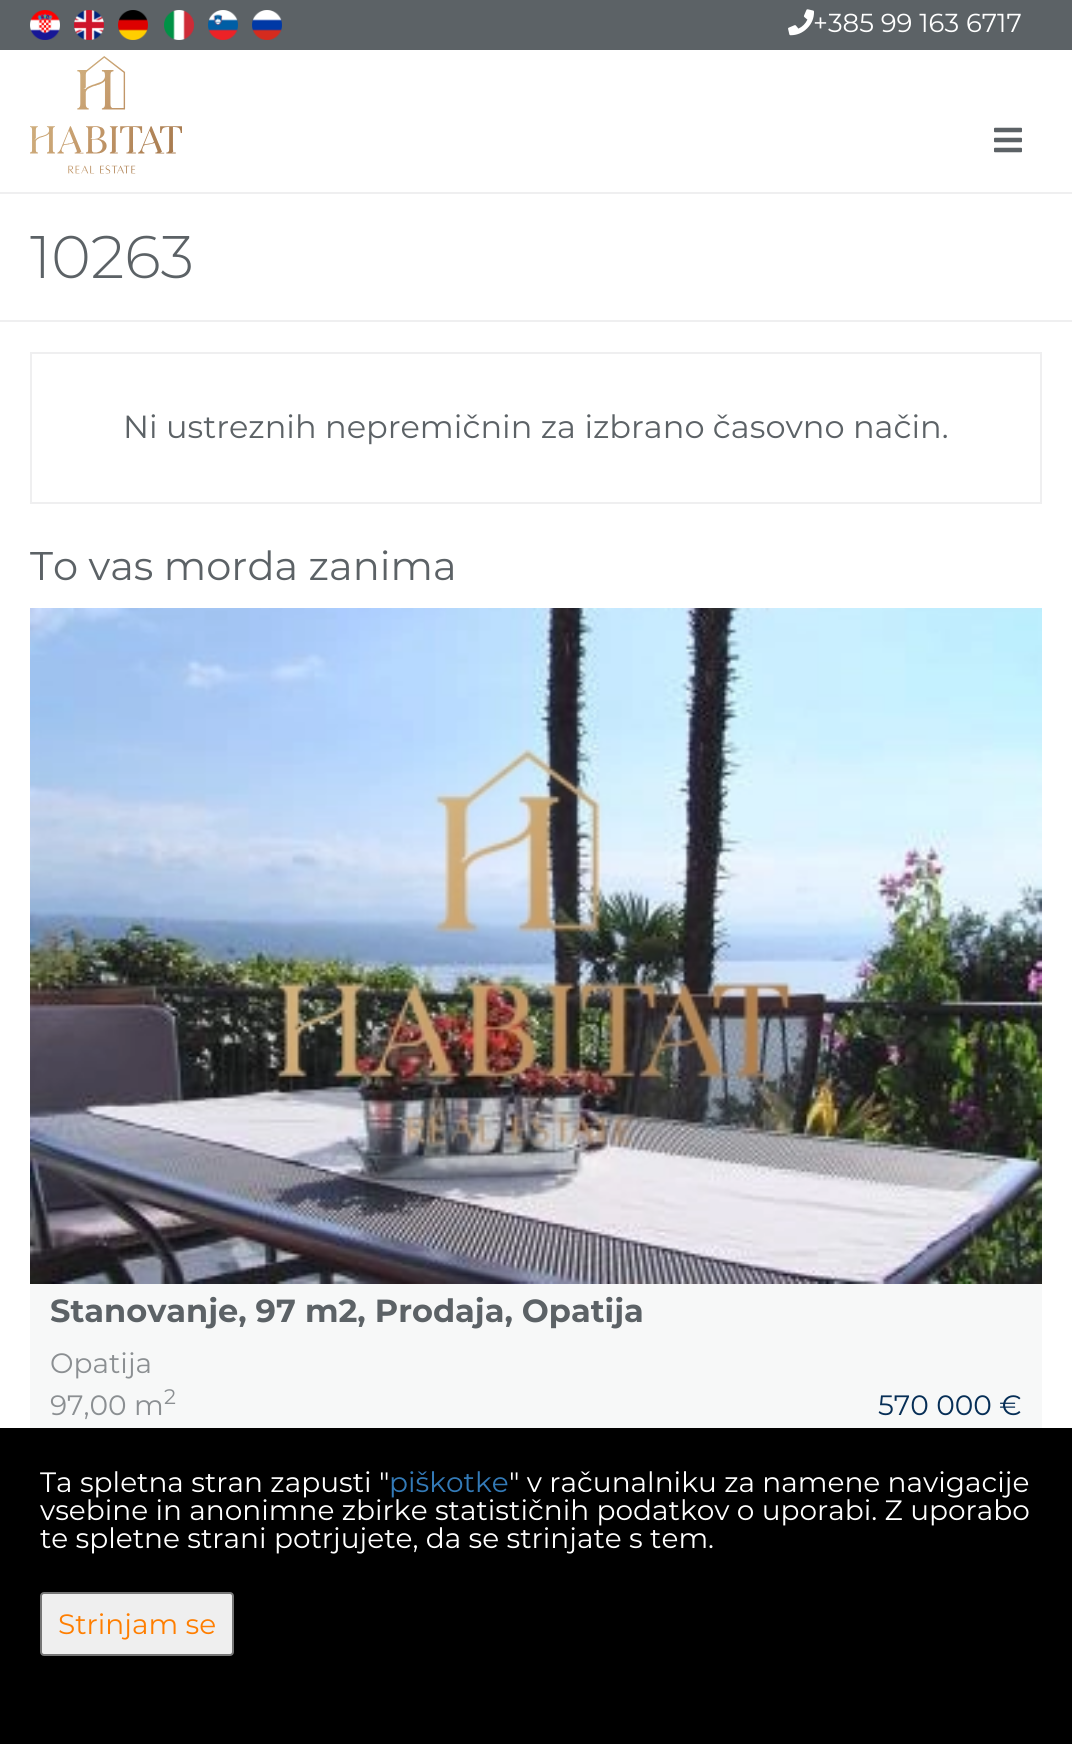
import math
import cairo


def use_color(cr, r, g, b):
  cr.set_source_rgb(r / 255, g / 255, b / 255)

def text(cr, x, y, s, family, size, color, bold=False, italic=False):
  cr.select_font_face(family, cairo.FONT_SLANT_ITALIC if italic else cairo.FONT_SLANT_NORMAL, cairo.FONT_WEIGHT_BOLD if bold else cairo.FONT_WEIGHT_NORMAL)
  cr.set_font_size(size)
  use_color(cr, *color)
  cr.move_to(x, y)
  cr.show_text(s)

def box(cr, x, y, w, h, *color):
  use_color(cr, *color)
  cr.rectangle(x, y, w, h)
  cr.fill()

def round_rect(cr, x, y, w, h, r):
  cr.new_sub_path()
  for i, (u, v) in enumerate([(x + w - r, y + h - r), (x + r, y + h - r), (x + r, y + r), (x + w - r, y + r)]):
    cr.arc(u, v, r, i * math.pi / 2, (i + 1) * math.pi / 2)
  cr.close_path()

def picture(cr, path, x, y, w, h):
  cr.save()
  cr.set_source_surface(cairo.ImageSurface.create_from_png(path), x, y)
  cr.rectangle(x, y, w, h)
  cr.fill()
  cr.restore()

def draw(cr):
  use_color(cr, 255, 255, 255)
  cr.paint()
  box(cr, 0, 0, 1072, 50, 92, 98, 102)
  picture(cr, "img_01.png", 30, 10, 30, 30)
  picture(cr, "img_02.png", 74, 10, 30, 30)
  picture(cr, "img_03.png", 118, 10, 30, 30)
  picture(cr, "img_04.png", 164, 10, 30, 30)
  picture(cr, "img_05.png", 208, 10, 30, 30)
  picture(cr, "img_06.png", 252, 10, 30, 30)
  picture(cr, "img_07.png", 788, 9, 26, 27)
  picture(cr, "img_08.png", 30, 56, 152, 118)
  picture(cr, "img_09.png", 994, 127, 28, 26)
  box(cr, 0, 192, 1072, 2, 239, 239, 240)
  box(cr, 0, 320, 1072, 2, 239, 239, 240)
  cr.rectangle(31, 353, 1010, 150)
  cr.stroke()
  picture(cr, "img_10.png", 30, 608, 1012, 676)
  box(cr, 30, 1284, 1012, 144, 247, 248, 248)
  box(cr, 0, 1428, 1072, 316, 0, 0, 0)
  use_color(cr, 239, 239, 239)
  round_rect(cr, 41, 1593, 192, 62, 3)
  cr.fill_preserve()
  use_color(cr, 118, 118, 118)
  cr.stroke()
  text(cr, 813, 32, "+385 99 163 6717", "Montserrat", 26, (255, 255, 255))
  text(cr, 30, 278, "10263", "Montserrat Light", 60, (92, 98, 102))
  text(cr, 123, 438, "Ni ustreznih nepremičnin za izbrano časovno način.", "Montserrat", 32, (92, 98, 102))
  text(cr, 30, 580, "To vas morda zanima", "Montserrat", 40, (92, 98, 102))
  text(cr, 50, 1322, "Stanovanje, 97 m2, Prodaja, Opatija", "Montserrat", 32, (92, 98, 102), bold=True)
  text(cr, 50, 1373, "Opatija", "Montserrat", 28, (139, 143, 146))
  text(cr, 50, 1415, "97,00 m", "Montserrat", 28, (139, 143, 146))
  text(cr, 164, 1404, "2", "Montserrat", 21, (139, 143, 146))
  text(cr, 878, 1415, "570 000 €", "Montserrat", 28, (6, 46, 86))
  text(cr, 40, 1492, "Ta spletna stran zapusti \"", "Montserrat", 28, (255, 255, 255))
  text(cr, 389, 1492, "piškotke", "Montserrat", 28, (51, 122, 183))
  text(cr, 509, 1492, "\" v računalniku za namene navigacije", "Montserrat", 28, (255, 255, 255))
  text(cr, 40, 1520, "vsebine in anonimne zbirke statističnih podatkov o uporabi. Z uporabo", "Montserrat", 28, (255, 255, 255))
  text(cr, 40, 1548, "te spletne strani potrjujete, da se strinjate s tem.", "Montserrat", 28, (255, 255, 255))
  text(cr, 58, 1634, "Strinjam se", "Montserrat", 28, (255, 126, 0))


surface = cairo.ImageSurface(cairo.FORMAT_RGB24, 1072, 1744)
cr = cairo.Context(surface)
options = cairo.FontOptions()
options.set_hint_metrics(cairo.HINT_METRICS_OFF)
options.set_hint_style(cairo.HINT_STYLE_NONE)
cr.set_font_options(options)
cr.set_miter_limit(4)
draw(cr)
surface.write_to_png("out.png")
